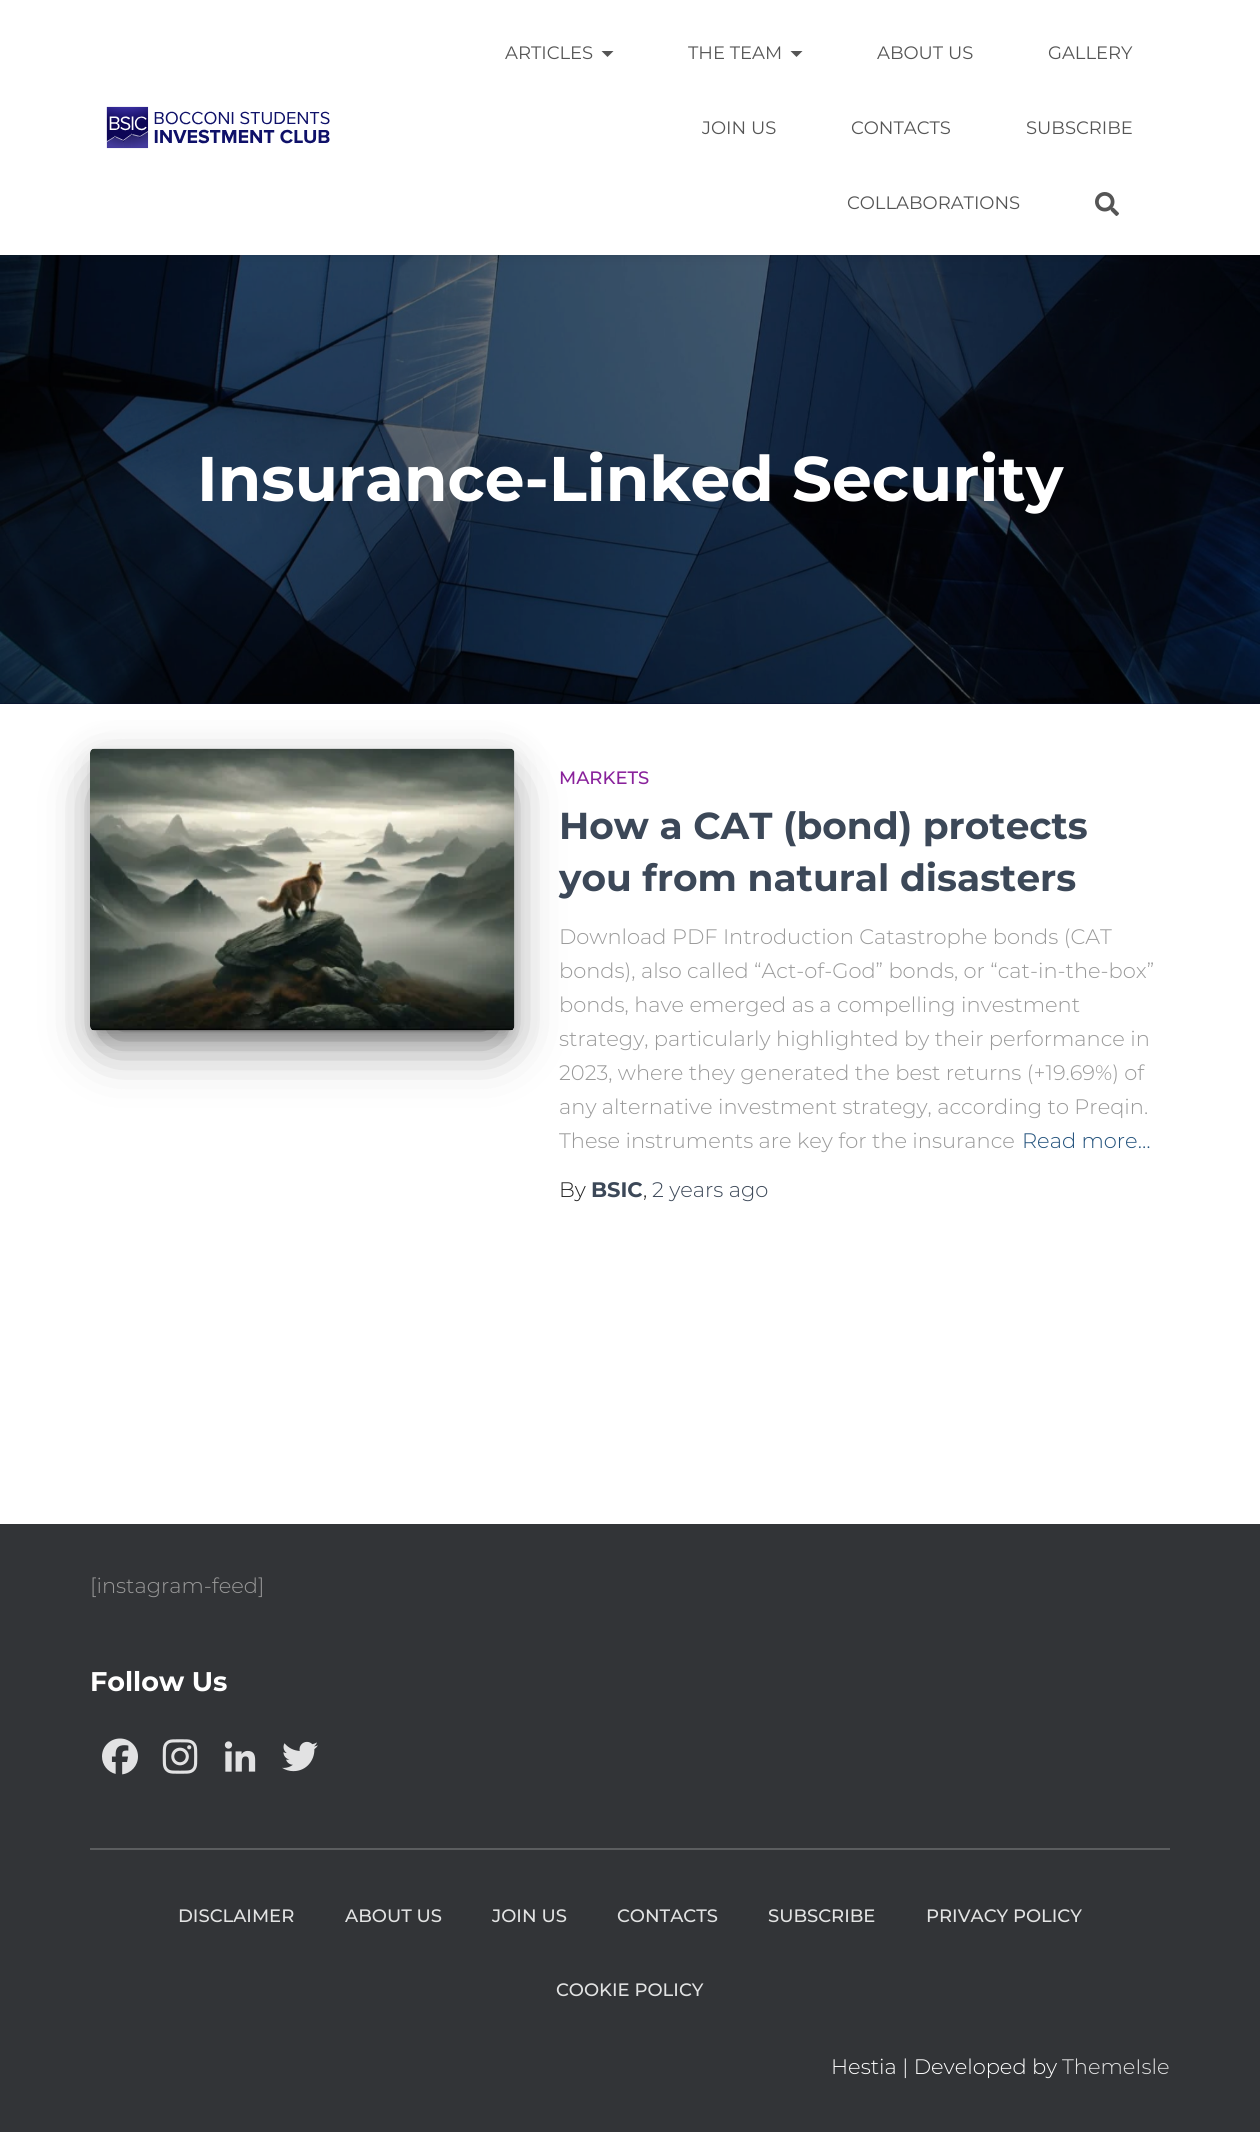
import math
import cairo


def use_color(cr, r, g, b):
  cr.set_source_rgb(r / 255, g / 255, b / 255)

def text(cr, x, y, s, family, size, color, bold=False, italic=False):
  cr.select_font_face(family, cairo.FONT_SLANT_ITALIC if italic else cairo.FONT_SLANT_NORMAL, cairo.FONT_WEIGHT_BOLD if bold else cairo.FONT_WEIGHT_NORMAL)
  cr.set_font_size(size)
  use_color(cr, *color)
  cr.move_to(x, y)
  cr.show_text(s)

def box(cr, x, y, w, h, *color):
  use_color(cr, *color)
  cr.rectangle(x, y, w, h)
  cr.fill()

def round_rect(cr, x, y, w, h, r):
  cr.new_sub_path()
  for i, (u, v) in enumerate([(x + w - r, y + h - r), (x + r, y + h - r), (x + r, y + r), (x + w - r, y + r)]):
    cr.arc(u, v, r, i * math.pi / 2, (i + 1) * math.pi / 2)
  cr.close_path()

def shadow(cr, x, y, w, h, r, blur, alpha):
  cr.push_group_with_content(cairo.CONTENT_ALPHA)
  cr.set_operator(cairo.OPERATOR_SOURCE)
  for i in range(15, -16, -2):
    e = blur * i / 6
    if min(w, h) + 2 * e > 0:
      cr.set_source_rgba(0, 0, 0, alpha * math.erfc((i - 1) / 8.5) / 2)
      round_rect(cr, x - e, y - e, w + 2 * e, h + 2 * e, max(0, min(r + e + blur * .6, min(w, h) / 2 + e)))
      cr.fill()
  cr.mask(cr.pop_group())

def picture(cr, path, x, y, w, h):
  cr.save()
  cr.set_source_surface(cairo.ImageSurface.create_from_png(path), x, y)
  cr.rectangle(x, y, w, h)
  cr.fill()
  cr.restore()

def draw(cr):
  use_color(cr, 7, 6, 42)
  cr.paint()
  picture(cr, "img_03.png", 0, 255, 1260, 449)
  use_color(cr, 0, 0, 0)
  shadow(cr, 9, 11, 1242, 237, 0, 7.5, 0.42)
  box(cr, 0, 0, 1260, 255, 255, 255, 255)
  picture(cr, "img_01.png", 106, 106, 224, 43)
  use_color(cr, 85, 85, 85)
  cr.new_path()
  cr.move_to(601.5, 51)
  cr.line_to(613.5, 51)
  cr.line_to(607.5, 57)
  cr.close_path()
  cr.fill()
  cr.new_path()
  cr.move_to(790.5, 51)
  cr.line_to(802.5, 51)
  cr.line_to(796.5, 57)
  cr.close_path()
  cr.fill()
  picture(cr, "img_02.png", 1095, 192, 24, 24)
  box(cr, 0, 704, 1260, 820, 255, 255, 255)
  use_color(cr, 0, 0, 0)
  shadow(cr, 98, 768, 409, 267, 0, 7.5, 0.2)
  shadow(cr, 90, 755, 425, 282, 5, 19, 0.12)
  shadow(cr, 108, 791, 389, 246, 0, 28.5, 0.56)
  picture(cr, "img_04.png", 90, 748, 425, 283)
  box(cr, 0, 1524, 1260, 608, 50, 52, 55)
  picture(cr, "img_05.png", 102, 1738, 36, 37)
  picture(cr, "img_06.png", 162, 1739, 36, 35)
  picture(cr, "img_07.png", 224, 1741, 32, 31)
  picture(cr, "img_08.png", 282, 1741, 36, 31)
  box(cr, 90, 1848, 1080, 2, 91, 93, 95)
  text(cr, 505, 59, "ARTICLES", "Montserrat", 18, (85, 85, 85))
  text(cr, 688, 59, "THE TEAM", "Montserrat", 18, (85, 85, 85))
  text(cr, 877, 59, "ABOUT US", "Montserrat", 18, (85, 85, 85))
  text(cr, 1048, 59, "GALLERY", "Montserrat", 18, (85, 85, 85))
  text(cr, 702, 134, "JOIN US", "Montserrat", 18, (85, 85, 85))
  text(cr, 851, 134, "CONTACTS", "Montserrat", 18, (85, 85, 85))
  text(cr, 1026, 134, "SUBSCRIBE", "Montserrat", 18, (85, 85, 85))
  text(cr, 847, 209, "COLLABORATIONS", "Montserrat", 18, (85, 85, 85))
  text(cr, 197, 501, "Insurance-Linked Security", "Montserrat", 63, (255, 255, 255), bold=True)
  text(cr, 559, 784, "MARKETS", "Montserrat Medium", 18, (137, 34, 155))
  text(cr, 559, 839, "How a CAT (bond) protects", "Montserrat", 37.5, (60, 72, 88), bold=True)
  text(cr, 559, 891, "you from natural disasters", "Montserrat", 37.5, (60, 72, 88), bold=True)
  text(cr, 559, 944, "Download PDF Introduction Catastrophe bonds (CAT", "Montserrat Light", 21, (153, 153, 153))
  text(cr, 559, 978, "bonds), also called “Act-of-God” bonds, or “cat-in-the-box”", "Montserrat Light", 21, (153, 153, 153))
  text(cr, 559, 1012, "bonds, have emerged as a compelling investment", "Montserrat Light", 21, (153, 153, 153))
  text(cr, 559, 1046, "strategy, particularly highlighted by their performance in", "Montserrat Light", 21, (153, 153, 153))
  text(cr, 559, 1080, "2023, where they generated the best returns (+19.69%) of", "Montserrat Light", 21, (153, 153, 153))
  text(cr, 559, 1114, "any alternative investment strategy, according to Preqin.", "Montserrat Light", 21, (153, 153, 153))
  text(cr, 559, 1148, "These instruments are key for the insurance", "Montserrat Light", 21, (153, 153, 153))
  text(cr, 1022, 1148, "Read more…", "Montserrat Light", 21, (35, 82, 124))
  text(cr, 559, 1197, "By", "Montserrat Light", 21, (33, 33, 33))
  text(cr, 591, 1197, "BSIC", "Montserrat", 21, (60, 72, 88), bold=True)
  text(cr, 643, 1197, ",", "Montserrat Light", 21, (33, 33, 33))
  text(cr, 652, 1197, "2 years ago", "Montserrat Light", 21, (60, 72, 88))
  text(cr, 90, 1593, "[instagram-feed]", "Montserrat Light", 21, (153, 153, 153))
  text(cr, 90, 1691, "Follow Us", "Montserrat", 27, (255, 255, 255), bold=True)
  text(cr, 178, 1922, "DISCLAIMER", "Montserrat Medium", 18, (226, 227, 227))
  text(cr, 345, 1922, "ABOUT US", "Montserrat Medium", 18, (226, 227, 227))
  text(cr, 492, 1922, "JOIN US", "Montserrat Medium", 18, (226, 227, 227))
  text(cr, 617, 1922, "CONTACTS", "Montserrat Medium", 18, (226, 227, 227))
  text(cr, 768, 1922, "SUBSCRIBE", "Montserrat Medium", 18, (226, 227, 227))
  text(cr, 926, 1922, "PRIVACY POLICY", "Montserrat Medium", 18, (226, 227, 227))
  text(cr, 556, 1996, "COOKIE POLICY", "Montserrat Medium", 18, (226, 227, 227))
  text(cr, 831, 2074, "Hestia | Developed by", "Montserrat Light", 21, (255, 255, 255))
  text(cr, 1062, 2074, "ThemeIsle", "Montserrat Light", 21, (226, 227, 227))


surface = cairo.ImageSurface(cairo.FORMAT_RGB24, 1260, 2132)
cr = cairo.Context(surface)
options = cairo.FontOptions()
options.set_hint_metrics(cairo.HINT_METRICS_OFF)
options.set_hint_style(cairo.HINT_STYLE_NONE)
cr.set_font_options(options)
cr.set_miter_limit(4)
draw(cr)
surface.write_to_png("out.png")
